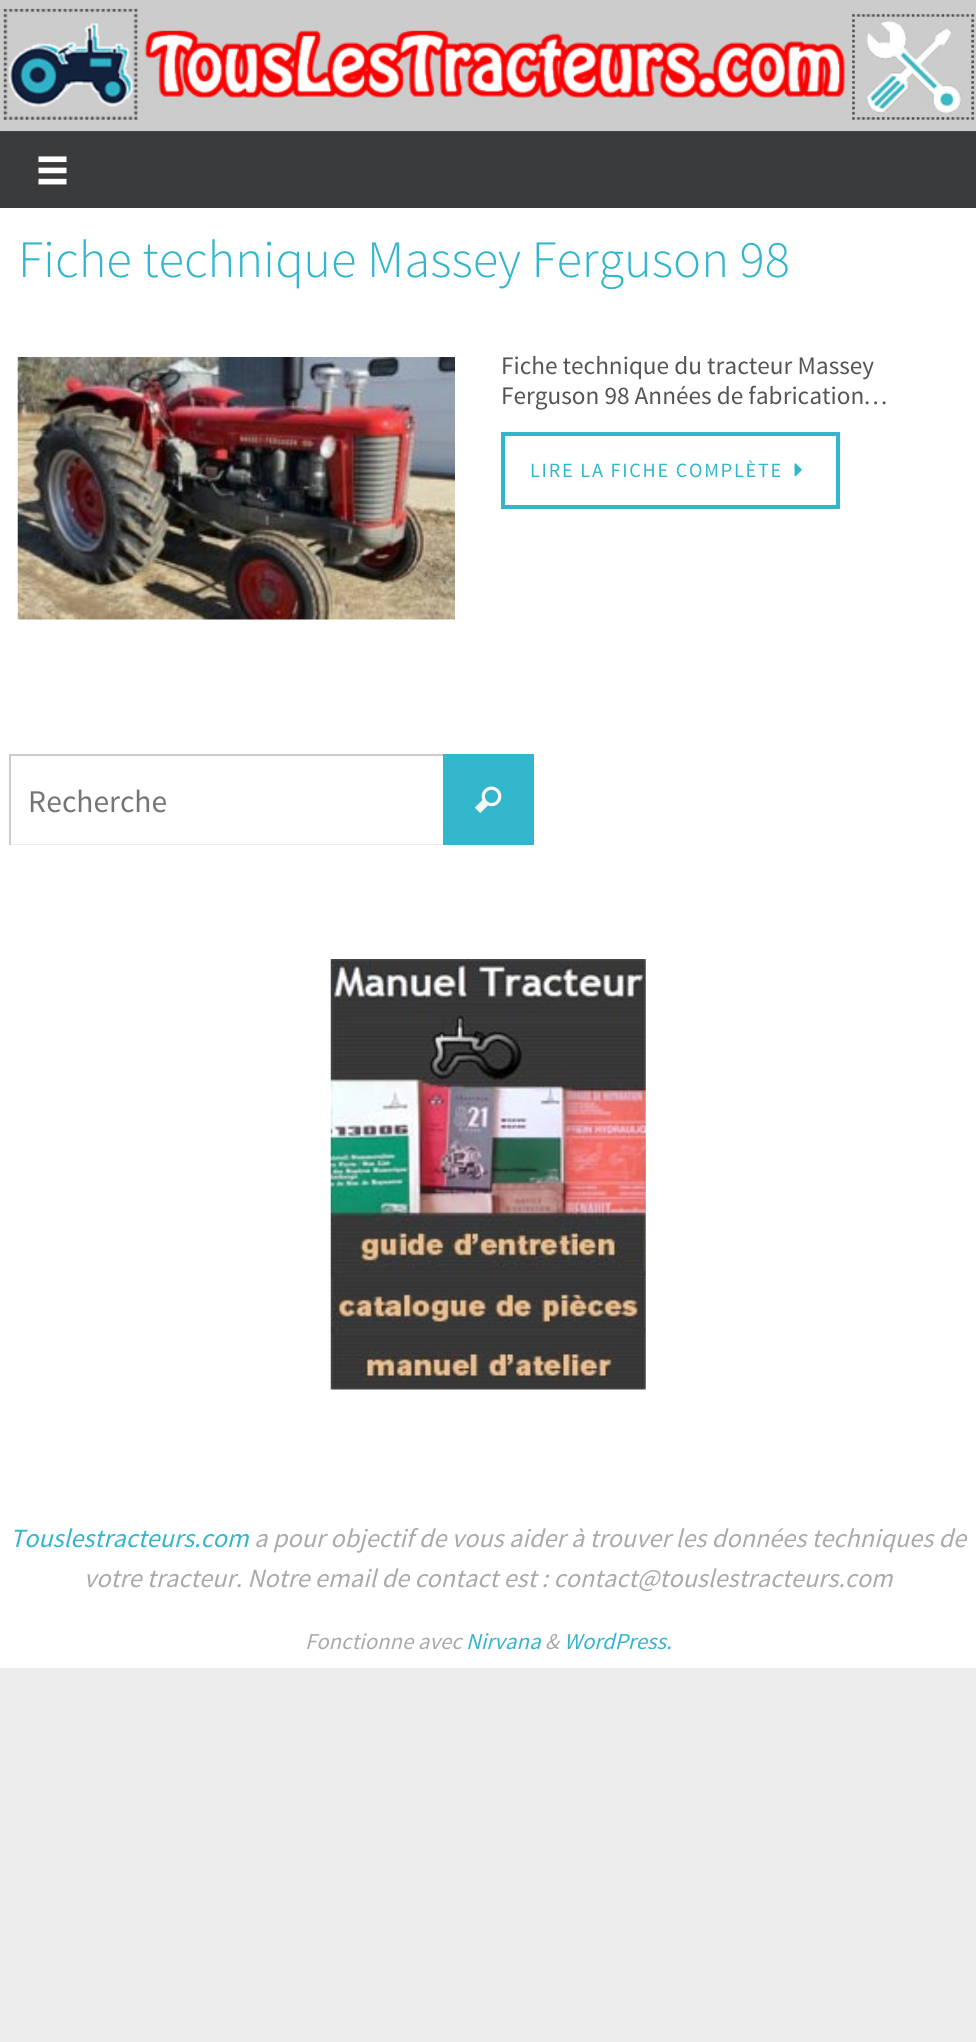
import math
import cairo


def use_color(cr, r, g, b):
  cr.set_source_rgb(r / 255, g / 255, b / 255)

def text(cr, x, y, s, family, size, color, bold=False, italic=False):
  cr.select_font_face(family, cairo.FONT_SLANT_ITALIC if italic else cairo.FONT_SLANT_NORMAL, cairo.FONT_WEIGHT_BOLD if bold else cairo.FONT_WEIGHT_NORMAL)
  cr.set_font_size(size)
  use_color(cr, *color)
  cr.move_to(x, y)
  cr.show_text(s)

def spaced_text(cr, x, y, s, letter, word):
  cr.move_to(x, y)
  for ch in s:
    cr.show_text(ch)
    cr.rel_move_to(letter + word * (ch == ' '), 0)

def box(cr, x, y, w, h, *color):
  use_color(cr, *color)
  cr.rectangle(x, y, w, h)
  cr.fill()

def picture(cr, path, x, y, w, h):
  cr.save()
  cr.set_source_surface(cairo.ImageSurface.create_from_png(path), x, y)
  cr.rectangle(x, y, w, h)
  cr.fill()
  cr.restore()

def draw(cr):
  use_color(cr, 237, 237, 237)
  cr.paint()
  box(cr, 0, 0, 976, 5, 204, 204, 204)
  box(cr, 0, 131, 976, 77, 58, 59, 61)
  picture(cr, "img_01.png", 0, 5, 976, 127)
  picture(cr, "img_02.png", 38, 156, 29, 29)
  box(cr, 0, 208, 976, 1460, 255, 255, 255)
  picture(cr, "img_03.png", 17, 357, 438, 263)
  cr.rectangle(503, 434, 335, 73)
  use_color(cr, 50, 182, 204)
  cr.set_line_width(4)
  cr.stroke()
  picture(cr, "img_04.png", 794, 463, 8, 14)
  box(cr, 443, 754, 91, 91, 50, 182, 204)
  box(cr, 9, 754, 434, 2, 204, 204, 204)
  box(cr, 9, 844, 434, 1, 238, 238, 238)
  box(cr, 9, 754, 2, 91, 204, 204, 204)
  picture(cr, "img_05.png", 474, 786, 28, 27)
  picture(cr, "img_06.png", 330, 959, 316, 431)
  text(cr, 18, 277, "Fiche technique Massey Ferguson 98", "Source Sans Pro Light", 52.5, (50, 182, 204))
  text(cr, 501, 374, "Fiche technique du tracteur Massey", "Source Sans Pro", 25.25, (85, 85, 85))
  text(cr, 501, 404, "Ferguson 98 Années de fabrication", "Source Sans Pro", 25.25, (85, 85, 85))
  text(cr, 863, 404, "…", "Liberation Serif", 25.25, (85, 85, 85))
  cr.select_font_face("Source Sans Pro")
  cr.set_font_size(20.2)
  use_color(cr, 50, 182, 204)
  spaced_text(cr, 530, 477, "LIRE LA FICHE COMPLÈTE", 1.75, 0)
  text(cr, 28, 812, "Recherche", "Source Sans Pro", 31.5, (117, 117, 117))
  text(cr, 10, 1547, "Touslestracteurs.com", "Source Sans Pro", 26.25, (50, 182, 204), italic=True)
  text(cr, 254, 1547, "a pour objectif de vous aider à trouver les données techniques de", "Source Sans Pro", 26.25, (170, 170, 170), italic=True)
  text(cr, 84, 1587, "votre tracteur. Notre email de contact est : contact@touslestracteurs.com", "Source Sans Pro", 26.25, (170, 170, 170), italic=True)
  text(cr, 305, 1649, "Fonctionne avec", "Source Sans Pro", 22.75, (170, 170, 170), italic=True)
  text(cr, 466, 1649, "Nirvana", "Source Sans Pro", 22.75, (50, 182, 204), italic=True)
  text(cr, 545, 1649, "&", "Source Sans Pro", 22.75, (170, 170, 170), italic=True)
  text(cr, 564, 1649, "WordPress.", "Source Sans Pro", 22.75, (50, 182, 204), italic=True)


surface = cairo.ImageSurface(cairo.FORMAT_RGB24, 976, 2042)
cr = cairo.Context(surface)
options = cairo.FontOptions()
options.set_hint_metrics(cairo.HINT_METRICS_OFF)
options.set_hint_style(cairo.HINT_STYLE_NONE)
cr.set_font_options(options)
cr.set_miter_limit(4)
draw(cr)
surface.write_to_png("out.png")
